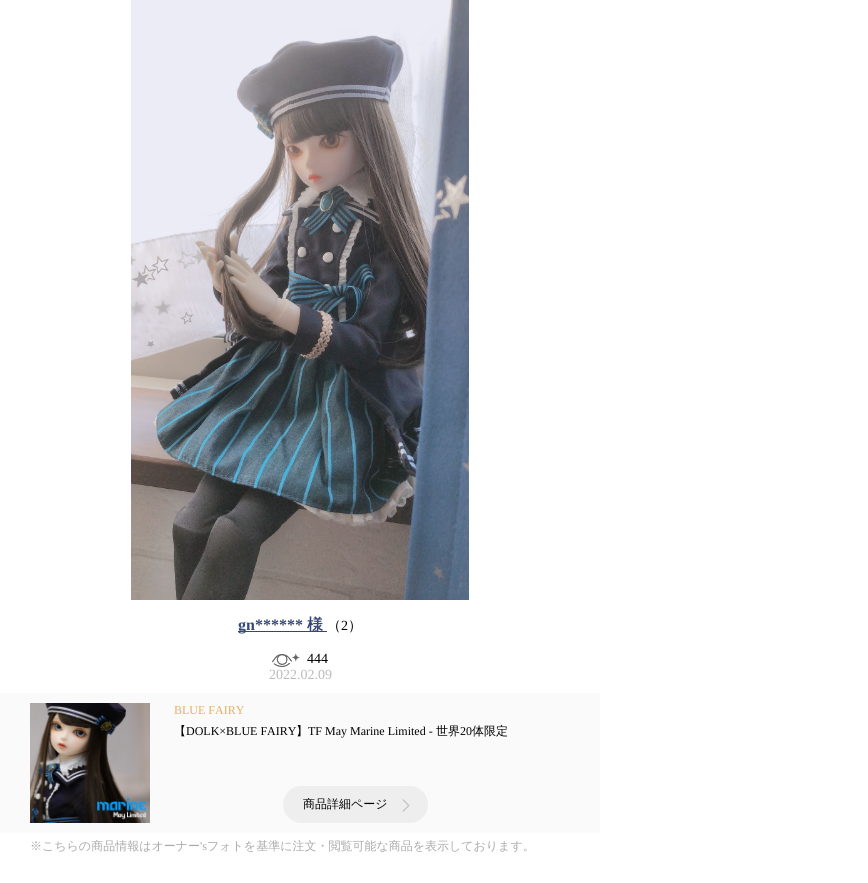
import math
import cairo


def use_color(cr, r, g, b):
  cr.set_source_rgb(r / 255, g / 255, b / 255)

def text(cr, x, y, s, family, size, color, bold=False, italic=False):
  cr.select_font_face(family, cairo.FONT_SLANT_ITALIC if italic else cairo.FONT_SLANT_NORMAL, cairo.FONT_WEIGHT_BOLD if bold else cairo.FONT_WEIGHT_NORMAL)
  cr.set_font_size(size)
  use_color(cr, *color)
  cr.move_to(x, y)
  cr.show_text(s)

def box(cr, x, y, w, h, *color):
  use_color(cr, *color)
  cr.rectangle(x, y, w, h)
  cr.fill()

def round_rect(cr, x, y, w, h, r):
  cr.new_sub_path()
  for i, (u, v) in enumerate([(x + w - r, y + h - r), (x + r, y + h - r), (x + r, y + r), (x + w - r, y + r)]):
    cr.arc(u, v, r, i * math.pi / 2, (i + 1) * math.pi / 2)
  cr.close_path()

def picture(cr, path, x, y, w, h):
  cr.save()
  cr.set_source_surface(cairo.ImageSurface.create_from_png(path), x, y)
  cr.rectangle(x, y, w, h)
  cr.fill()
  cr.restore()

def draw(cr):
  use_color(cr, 255, 255, 255)
  cr.paint()
  picture(cr, "img_01.png", 131, 0, 338, 600)
  box(cr, 238, 631, 89, 1, 55, 72, 120)
  picture(cr, "img_02.png", 272, 653, 28, 14)
  box(cr, 0, 693, 600, 140, 250, 250, 250)
  picture(cr, "img_03.png", 30, 703, 120, 120)
  use_color(cr, 238, 238, 238)
  round_rect(cr, 283, 786, 145, 37, 18.5)
  cr.fill()
  use_color(cr, 187, 187, 187)
  cr.new_path()
  cr.move_to(403, 799)
  cr.line_to(409.5, 805.5)
  cr.line_to(408.5, 806)
  cr.line_to(402.5, 800)
  cr.close_path()
  cr.fill()
  cr.new_path()
  cr.move_to(408.5, 805)
  cr.line_to(409.5, 805.5)
  cr.line_to(403, 812)
  cr.line_to(402.5, 811)
  cr.close_path()
  cr.fill()
  text(cr, 238, 630, "gn******", "Liberation Serif", 16, (55, 72, 120), bold=True)
  text(cr, 307, 630, "様", "WenQuanYi Zen Hei", 16, (55, 72, 120), bold=True)
  text(cr, 327, 630, "（", "WenQuanYi Zen Hei Medium", 14, (0, 0, 0))
  text(cr, 341, 630, "2", "Liberation Serif", 14, (0, 0, 0))
  text(cr, 348, 630, "）", "WenQuanYi Zen Hei Medium", 14, (0, 0, 0))
  text(cr, 307, 663, "444", "Liberation Serif", 14, (0, 0, 0))
  text(cr, 269, 679, "2022.02.09", "Liberation Serif", 14, (187, 187, 187))
  text(cr, 174, 714, "BLUE FAIRY", "Liberation Serif", 12, (229, 177, 95))
  text(cr, 174, 735, "【", "WenQuanYi Zen Hei Medium", 12, (0, 0, 0))
  text(cr, 186, 735, "DOLK×BLUE FAIRY", "Liberation Serif", 12, (0, 0, 0))
  text(cr, 296, 735, "】", "WenQuanYi Zen Hei Medium", 12, (0, 0, 0))
  text(cr, 308, 735, "TF May Marine Limited -", "Liberation Serif", 12, (0, 0, 0))
  text(cr, 436, 735, "世界", "WenQuanYi Zen Hei Medium", 12, (0, 0, 0))
  text(cr, 460, 735, "20", "Liberation Serif", 12, (0, 0, 0))
  text(cr, 472, 735, "体限定", "WenQuanYi Zen Hei Medium", 12, (0, 0, 0))
  text(cr, 303, 808, "商品詳細ページ", "WenQuanYi Zen Hei Medium", 12, (0, 0, 0))
  text(cr, 30, 850, "※こちらの商品情報はオーナー", "WenQuanYi Zen Hei Medium", 12, (170, 170, 170))
  text(cr, 200, 850, "'s", "Liberation Serif", 12, (170, 170, 170))
  text(cr, 207, 850, "フォトを基準に注文・閲覧可能な商品を表示しております。", "WenQuanYi Zen Hei Medium", 12, (170, 170, 170))


surface = cairo.ImageSurface(cairo.FORMAT_RGB24, 868, 883)
cr = cairo.Context(surface)
options = cairo.FontOptions()
options.set_hint_metrics(cairo.HINT_METRICS_OFF)
options.set_hint_style(cairo.HINT_STYLE_NONE)
cr.set_font_options(options)
cr.set_miter_limit(4)
draw(cr)
surface.write_to_png("out.png")
